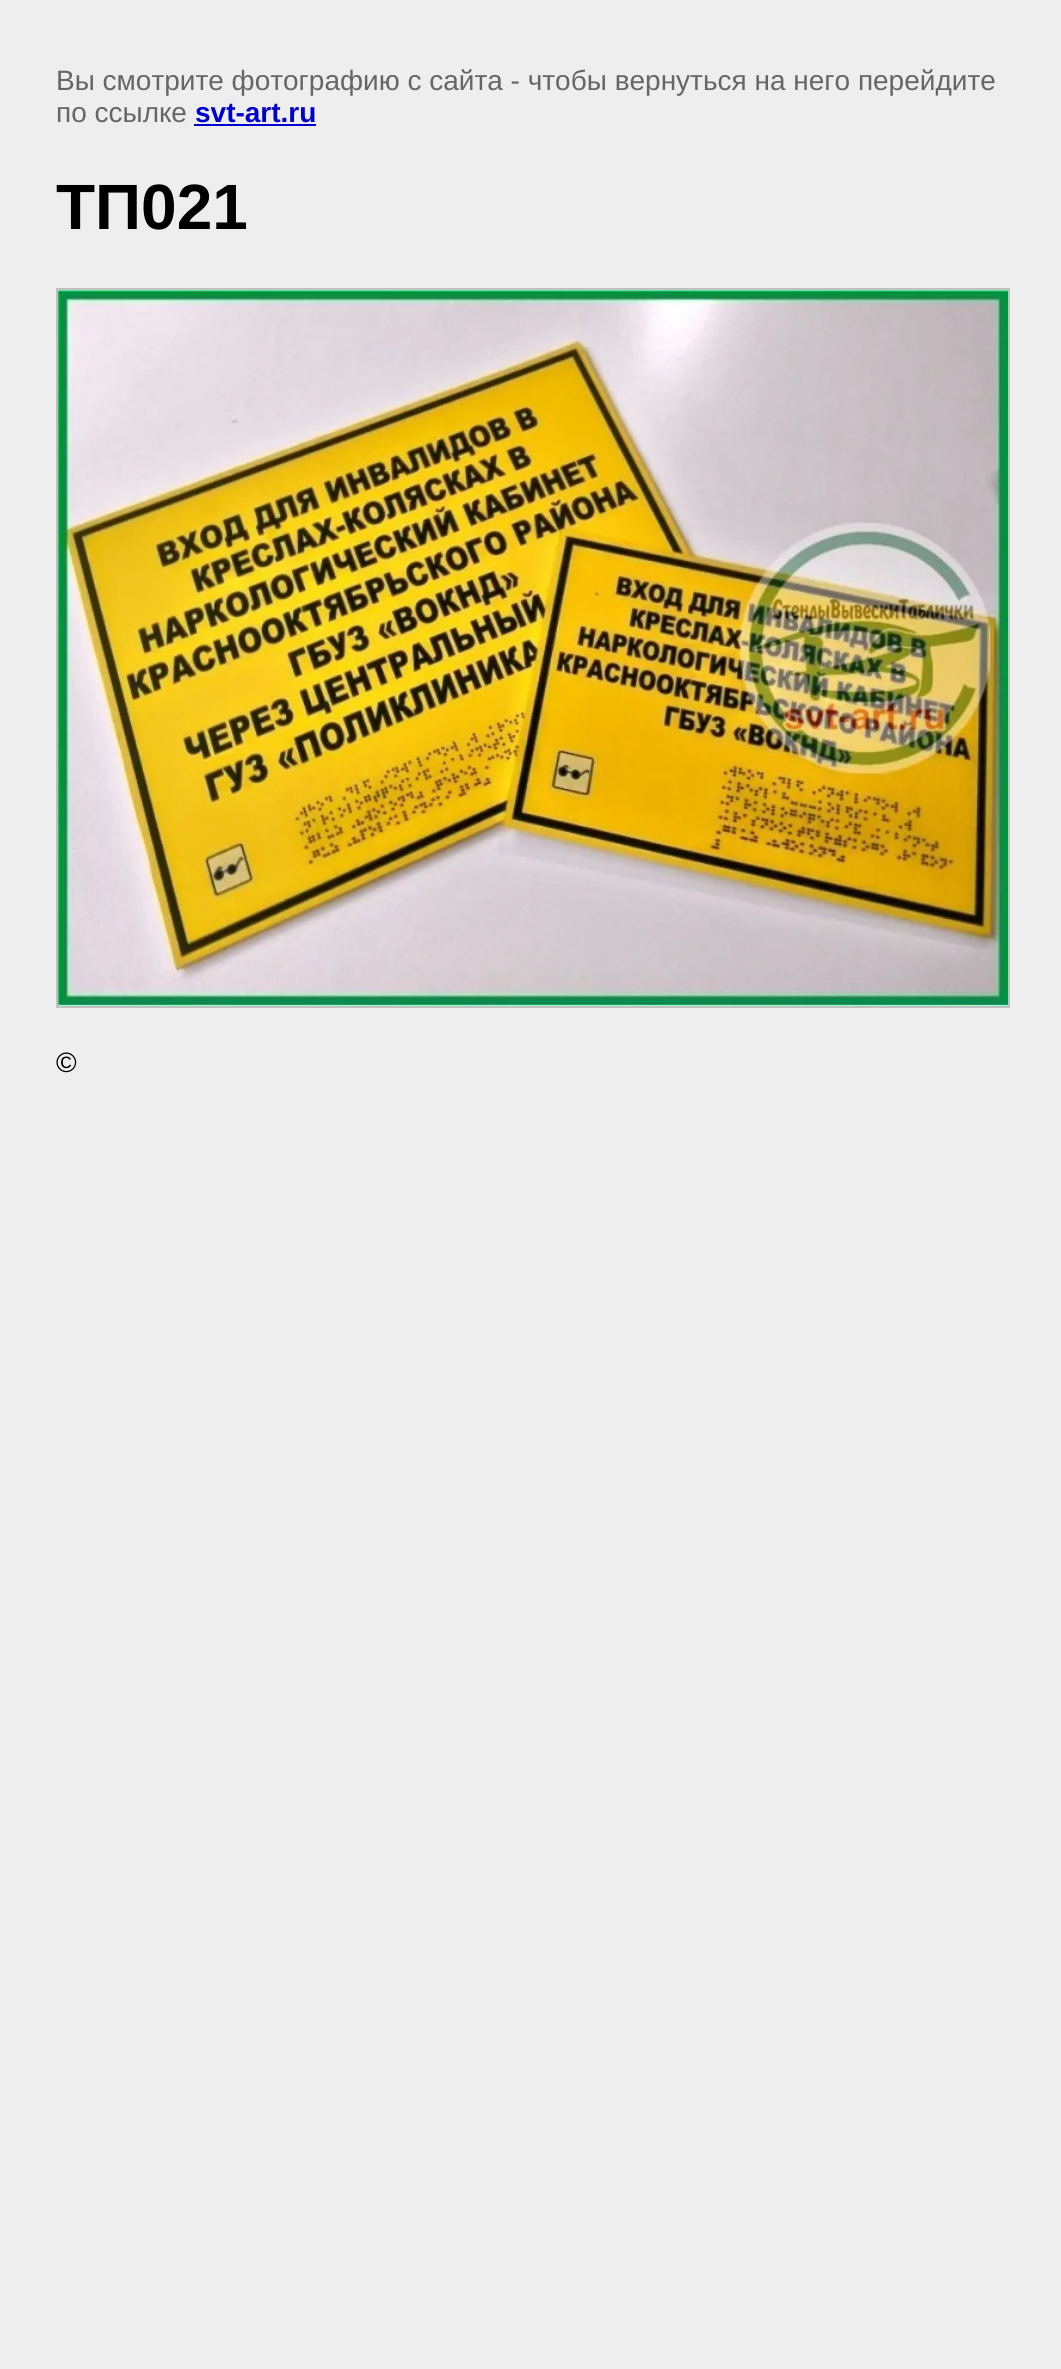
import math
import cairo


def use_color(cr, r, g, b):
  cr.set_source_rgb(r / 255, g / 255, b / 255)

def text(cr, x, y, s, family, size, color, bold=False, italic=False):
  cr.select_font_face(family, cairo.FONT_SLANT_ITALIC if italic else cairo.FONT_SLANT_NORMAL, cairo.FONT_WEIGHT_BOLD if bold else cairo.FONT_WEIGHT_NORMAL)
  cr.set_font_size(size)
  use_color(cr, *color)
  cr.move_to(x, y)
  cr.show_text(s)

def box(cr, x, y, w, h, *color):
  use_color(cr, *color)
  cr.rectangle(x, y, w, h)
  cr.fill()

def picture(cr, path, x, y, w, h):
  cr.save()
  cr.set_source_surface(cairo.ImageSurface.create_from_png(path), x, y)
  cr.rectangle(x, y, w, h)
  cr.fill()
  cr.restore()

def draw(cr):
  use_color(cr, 238, 238, 238)
  cr.paint()
  box(cr, 194, 124, 122, 2, 0, 0, 204)
  cr.rectangle(57, 289, 952, 718)
  use_color(cr, 192, 192, 192)
  cr.stroke()
  picture(cr, "img_01.png", 58, 290, 950, 716)
  text(cr, 56, 90, "Вы смотрите фотографию с сайта - чтобы вернуться на него перейдите", "Liberation Sans", 28, (102, 102, 102))
  text(cr, 56, 122, "по ссылке", "Liberation Sans", 28, (102, 102, 102))
  text(cr, 195, 122, "svt-art.ru", "Liberation Sans", 28, (0, 0, 204), bold=True)
  text(cr, 56, 229, "ТП021", "Liberation Sans", 64, (0, 0, 0), bold=True)
  text(cr, 56, 1072, "©", "Liberation Sans", 28, (0, 0, 0))


surface = cairo.ImageSurface(cairo.FORMAT_RGB24, 1061, 2369)
cr = cairo.Context(surface)
options = cairo.FontOptions()
options.set_hint_metrics(cairo.HINT_METRICS_OFF)
options.set_hint_style(cairo.HINT_STYLE_NONE)
cr.set_font_options(options)
cr.set_miter_limit(4)
draw(cr)
surface.write_to_png("out.png")
